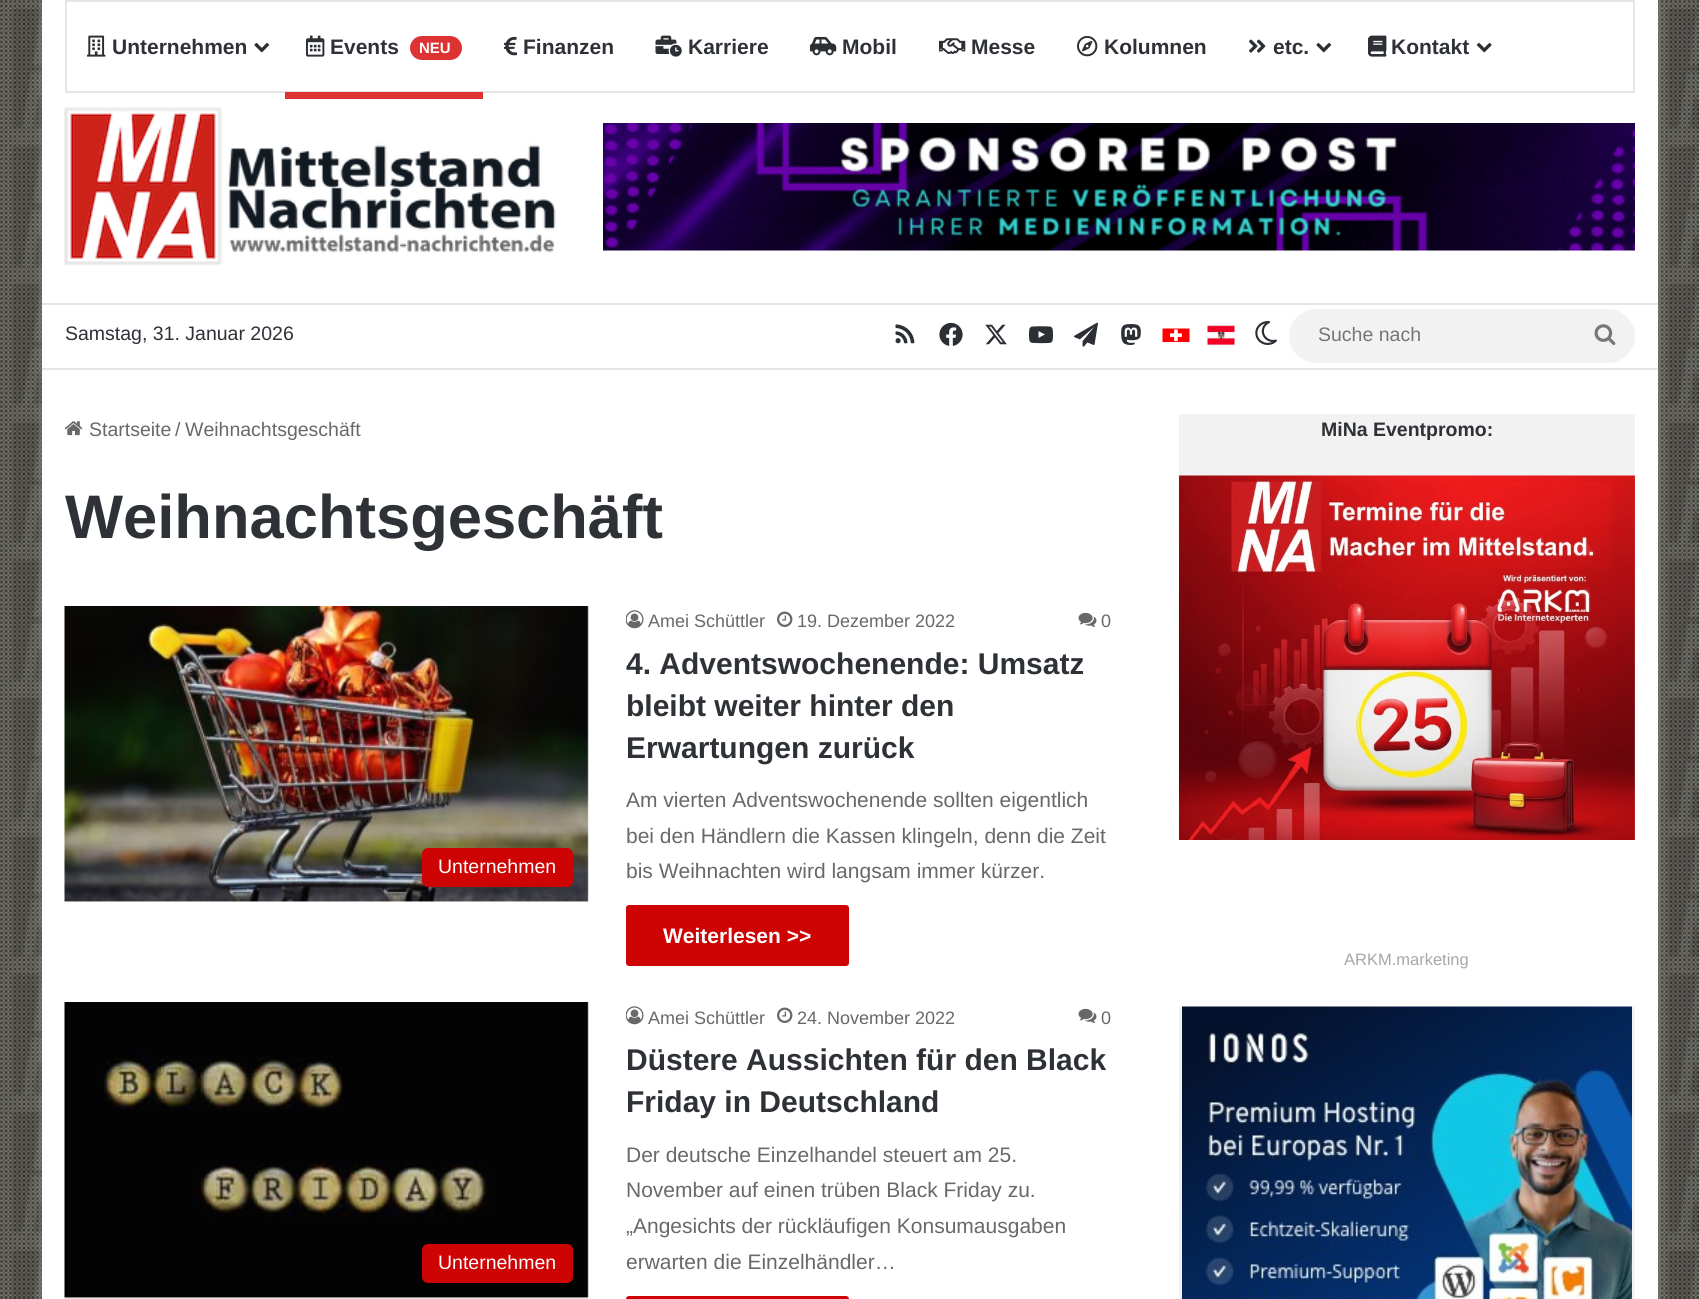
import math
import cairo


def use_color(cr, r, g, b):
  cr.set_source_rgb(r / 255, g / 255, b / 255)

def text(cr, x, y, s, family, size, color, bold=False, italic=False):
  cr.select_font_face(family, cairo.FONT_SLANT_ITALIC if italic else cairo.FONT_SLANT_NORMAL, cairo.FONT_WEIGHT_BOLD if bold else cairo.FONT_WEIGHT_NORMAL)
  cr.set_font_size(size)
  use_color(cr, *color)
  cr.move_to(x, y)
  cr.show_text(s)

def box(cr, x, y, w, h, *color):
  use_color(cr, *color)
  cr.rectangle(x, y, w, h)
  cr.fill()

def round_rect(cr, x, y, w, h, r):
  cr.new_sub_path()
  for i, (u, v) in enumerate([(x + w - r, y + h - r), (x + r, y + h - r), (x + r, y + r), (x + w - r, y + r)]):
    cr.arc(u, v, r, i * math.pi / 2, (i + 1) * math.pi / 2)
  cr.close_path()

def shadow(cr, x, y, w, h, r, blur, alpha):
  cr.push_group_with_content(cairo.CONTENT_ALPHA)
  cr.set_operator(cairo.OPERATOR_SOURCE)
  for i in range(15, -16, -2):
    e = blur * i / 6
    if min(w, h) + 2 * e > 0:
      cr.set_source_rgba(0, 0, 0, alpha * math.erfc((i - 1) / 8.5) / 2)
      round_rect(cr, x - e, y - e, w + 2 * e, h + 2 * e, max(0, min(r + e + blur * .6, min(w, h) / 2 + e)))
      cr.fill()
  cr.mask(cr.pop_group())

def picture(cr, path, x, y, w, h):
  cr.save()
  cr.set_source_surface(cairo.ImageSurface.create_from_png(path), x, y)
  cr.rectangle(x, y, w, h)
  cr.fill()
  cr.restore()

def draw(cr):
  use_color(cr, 255, 255, 255)
  cr.paint()
  picture(cr, "img_01.png", 0, 0, 1699, 1299)
  picture(cr, "img_02.png", 0, 0, 1699, 1299)
  use_color(cr, 171, 171, 171)
  shadow(cr, 42, 2, 1616, 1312, 0, 5, 0.5)
  box(cr, 42, 0, 1616, 1299, 255, 255, 255)
  cr.rectangle(66, 1, 1568, 91)
  use_color(cr, 230, 230, 230)
  cr.stroke()
  picture(cr, "img_03.png", 87, 35, 19, 22)
  picture(cr, "img_04.png", 254, 42, 16, 11)
  box(cr, 285, 92, 198, 7, 221, 51, 51)
  picture(cr, "img_05.png", 306, 35, 19, 22)
  round_rect(cr, 410, 36, 52, 24, 12)
  cr.fill()
  picture(cr, "img_06.png", 504, 36, 14, 20)
  picture(cr, "img_07.png", 655, 35, 27, 22)
  picture(cr, "img_08.png", 810, 36, 27, 20)
  picture(cr, "img_09.png", 939, 38, 27, 16)
  picture(cr, "img_10.png", 1077, 36, 21, 21)
  picture(cr, "img_11.png", 1249, 39, 17, 14)
  picture(cr, "img_04.png", 1316, 42, 16, 11)
  picture(cr, "img_12.png", 1368, 35, 19, 22)
  picture(cr, "img_13.png", 1476, 42, 16, 11)
  picture(cr, "img_14.png", 64, 107, 492, 159)
  picture(cr, "img_15.png", 603, 123, 1032, 128)
  box(cr, 42, 303, 1616, 2, 230, 230, 230)
  box(cr, 42, 368, 1616, 2, 230, 230, 230)
  picture(cr, "img_16.png", 895, 324, 20, 20)
  picture(cr, "img_17.png", 939, 322, 24, 24)
  picture(cr, "img_18.png", 985, 324, 22, 21)
  picture(cr, "img_19.png", 1029, 326, 24, 18)
  picture(cr, "img_20.png", 1074, 322, 24, 25)
  picture(cr, "img_21.png", 1121, 324, 20, 21)
  picture(cr, "img_22.png", 1162, 328, 28, 14)
  picture(cr, "img_23.png", 1207, 325, 28, 20)
  picture(cr, "img_24.png", 1255, 321, 22, 24)
  use_color(cr, 242, 242, 242)
  round_rect(cr, 1289, 309, 346, 54, 27)
  cr.fill()
  picture(cr, "img_25.png", 1594, 324, 22, 22)
  picture(cr, "img_26.png", 64, 421, 19, 15)
  picture(cr, "img_27.png", 64, 606, 525, 296)
  use_color(cr, 206, 3, 3)
  round_rect(cr, 422, 848, 151, 39, 6)
  cr.fill()
  picture(cr, "img_28.png", 626, 610, 18, 19)
  picture(cr, "img_29.png", 777, 611, 16, 16)
  picture(cr, "img_30.png", 1078, 612, 19, 15)
  round_rect(cr, 626, 905, 223, 61, 3)
  cr.fill()
  picture(cr, "img_31.png", 64, 1002, 525, 297)
  round_rect(cr, 422, 1244, 151, 39, 6)
  cr.fill()
  picture(cr, "img_28.png", 626, 1006, 18, 19)
  picture(cr, "img_29.png", 777, 1007, 16, 16)
  picture(cr, "img_30.png", 1078, 1008, 19, 15)
  round_rect(cr, 626, 1296, 223, 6, 3)
  cr.fill()
  box(cr, 1179, 414, 456, 426, 242, 242, 242)
  picture(cr, "img_32.png", 1179, 475, 456, 365)
  box(cr, 1179, 1007, 456, 292, 242, 242, 242)
  picture(cr, "img_33.png", 1182, 1006, 450, 293)
  text(cr, 112, 54, "Unternehmen", "Liberation Sans", 21, (46, 49, 54), bold=True)
  text(cr, 330, 54, "Events", "Liberation Sans", 21, (46, 49, 54), bold=True)
  text(cr, 419, 53, "NEU", "Liberation Sans", 15, (255, 255, 255), bold=True)
  text(cr, 523, 54, "Finanzen", "Liberation Sans", 21, (46, 49, 54), bold=True)
  text(cr, 688, 54, "Karriere", "Liberation Sans", 21, (46, 49, 54), bold=True)
  text(cr, 842, 54, "Mobil", "Liberation Sans", 21, (46, 49, 54), bold=True)
  text(cr, 971, 54, "Messe", "Liberation Sans", 21, (46, 49, 54), bold=True)
  text(cr, 1104, 54, "Kolumnen", "Liberation Sans", 21, (46, 49, 54), bold=True)
  text(cr, 1273, 54, "etc.", "Liberation Sans", 21, (46, 49, 54), bold=True)
  text(cr, 1391, 54, "Kontakt", "Liberation Sans", 21, (46, 49, 54), bold=True)
  text(cr, 65, 340, "Samstag, 31. Januar 2026", "Liberation Sans", 19.5, (46, 49, 54))
  text(cr, 1318, 341, "Suche nach", "Liberation Sans", 19.5, (117, 117, 117))
  text(cr, 89, 436, "Startseite", "Liberation Sans", 19.5, (104, 104, 104))
  text(cr, 175, 436, "/", "Liberation Sans", 19.5, (104, 104, 104))
  text(cr, 185, 436, "Weihnachtsgeschäft", "Liberation Sans", 19.5, (104, 104, 104))
  text(cr, 65, 538, "Weihnachtsgeschäft", "Liberation Sans", 61.5, (46, 49, 54), bold=True)
  text(cr, 438, 873, "Unternehmen", "Liberation Sans", 19.5, (255, 255, 255))
  text(cr, 648, 627, "Amei Schüttler", "Liberation Sans", 18, (104, 104, 104))
  text(cr, 797, 627, "19. Dezember 2022", "Liberation Sans", 18, (104, 104, 104))
  text(cr, 1101, 627, "0", "Liberation Sans", 18, (104, 104, 104))
  text(cr, 626, 674, "4. Adventswochenende: Umsatz", "Liberation Sans", 30, (46, 49, 54), bold=True)
  text(cr, 626, 716, "bleibt weiter hinter den", "Liberation Sans", 30, (46, 49, 54), bold=True)
  text(cr, 626, 758, "Erwartungen zurück", "Liberation Sans", 30, (46, 49, 54), bold=True)
  text(cr, 626, 807, "Am vierten Adventswochenende sollten eigentlich", "Liberation Sans", 21, (104, 104, 104))
  text(cr, 626, 843, "bei den Händlern die Kassen klingeln, denn die Zeit", "Liberation Sans", 21, (104, 104, 104))
  text(cr, 626, 878, "bis Weihnachten wird langsam immer kürzer.", "Liberation Sans", 21, (104, 104, 104))
  text(cr, 663, 943, "Weiterlesen >>", "Liberation Sans", 21, (255, 255, 255), bold=True)
  text(cr, 438, 1269, "Unternehmen", "Liberation Sans", 19.5, (255, 255, 255))
  text(cr, 648, 1024, "Amei Schüttler", "Liberation Sans", 18, (104, 104, 104))
  text(cr, 797, 1024, "24. November 2022", "Liberation Sans", 18, (104, 104, 104))
  text(cr, 1101, 1024, "0", "Liberation Sans", 18, (104, 104, 104))
  text(cr, 626, 1070, "Düstere Aussichten für den Black", "Liberation Sans", 30, (46, 49, 54), bold=True)
  text(cr, 626, 1112, "Friday in Deutschland", "Liberation Sans", 30, (46, 49, 54), bold=True)
  text(cr, 626, 1162, "Der deutsche Einzelhandel steuert am 25.", "Liberation Sans", 21, (104, 104, 104))
  text(cr, 626, 1197, "November auf einen trüben Black Friday zu.", "Liberation Sans", 21, (104, 104, 104))
  text(cr, 626, 1233, "„Angesichts der rückläufigen Konsumausgaben", "Liberation Sans", 21, (104, 104, 104))
  text(cr, 626, 1269, "erwarten die Einzelhändler…", "Liberation Sans", 21, (104, 104, 104))
  text(cr, 1321, 436, "MiNa Eventpromo:", "Liberation Sans", 19.5, (46, 49, 54), bold=True)
  text(cr, 1344, 965, "ARKM.marketing", "Liberation Sans", 16.5, (166, 166, 166))


surface = cairo.ImageSurface(cairo.FORMAT_RGB24, 1699, 1299)
cr = cairo.Context(surface)
options = cairo.FontOptions()
options.set_hint_metrics(cairo.HINT_METRICS_OFF)
options.set_hint_style(cairo.HINT_STYLE_NONE)
cr.set_font_options(options)
cr.set_miter_limit(4)
draw(cr)
surface.write_to_png("out.png")
